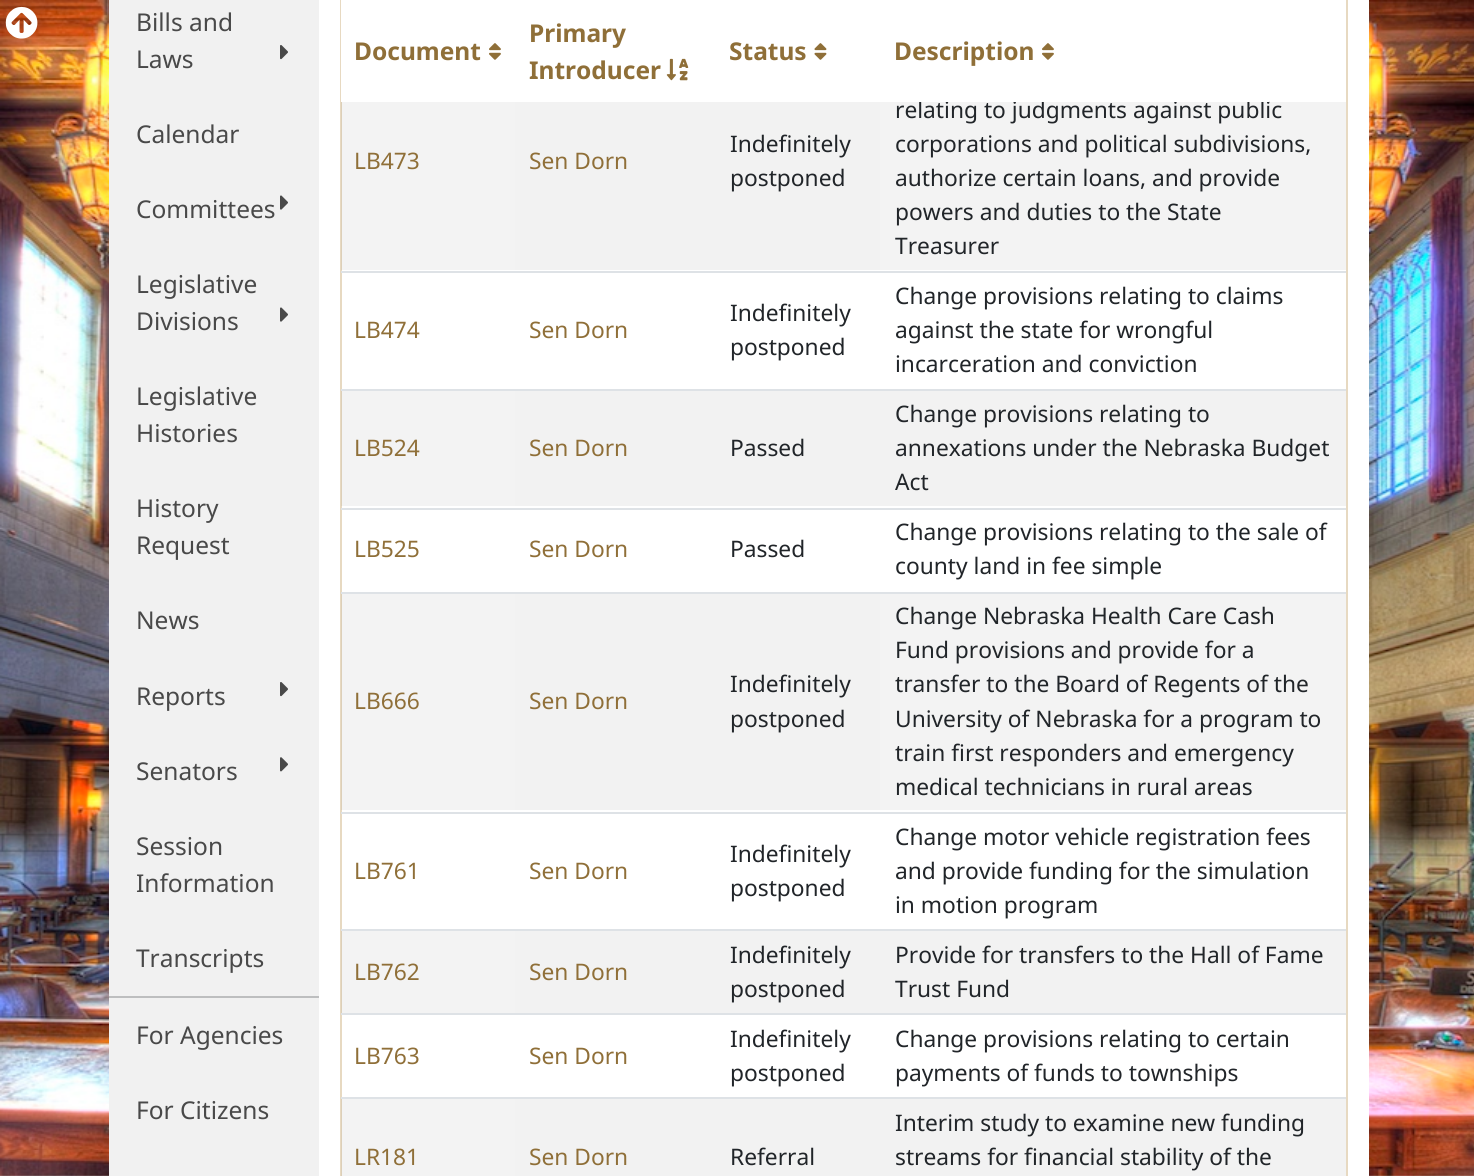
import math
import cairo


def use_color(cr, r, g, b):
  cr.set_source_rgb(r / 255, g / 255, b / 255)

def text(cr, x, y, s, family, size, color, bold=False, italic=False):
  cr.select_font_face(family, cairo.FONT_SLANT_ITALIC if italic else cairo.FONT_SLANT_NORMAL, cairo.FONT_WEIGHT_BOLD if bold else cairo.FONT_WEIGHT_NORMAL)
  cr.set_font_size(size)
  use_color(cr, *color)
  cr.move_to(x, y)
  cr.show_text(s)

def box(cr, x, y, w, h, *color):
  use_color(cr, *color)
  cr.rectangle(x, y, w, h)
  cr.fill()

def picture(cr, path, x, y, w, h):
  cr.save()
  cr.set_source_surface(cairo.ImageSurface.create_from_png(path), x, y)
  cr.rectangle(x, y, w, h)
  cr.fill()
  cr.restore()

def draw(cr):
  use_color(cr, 255, 255, 255)
  cr.paint()
  picture(cr, "img_01.png", 0, 0, 1474, 1176)
  picture(cr, "img_02.png", 5, 6, 33, 33)
  box(cr, 319, 0, 1050, 1176, 255, 255, 255)
  box(cr, 109, 0, 210, 1176, 241, 241, 241)
  picture(cr, "img_03.png", 280, 45, 8, 15)
  picture(cr, "img_04.png", 280, 195, 8, 15)
  picture(cr, "img_04.png", 280, 307, 8, 15)
  picture(cr, "img_03.png", 280, 682, 8, 15)
  picture(cr, "img_05.png", 280, 757, 8, 15)
  box(cr, 109, 996, 210, 2, 189, 190, 191)
  cr.rectangle(341, -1, 1006, 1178)
  use_color(cr, 231, 217, 193)
  cr.stroke()
  cr.set_source_rgba(0, 0, 0, 0.05)
  cr.rectangle(341, 102, 174, 168)
  cr.fill()
  box(cr, 515, 102, 365, 168, 242, 242, 242)
  box(cr, 880, 102, 466, 168, 243, 243, 243)
  box(cr, 341, 271, 1005, 2, 222, 226, 230)
  box(cr, 341, 389, 1005, 2, 222, 226, 230)
  cr.set_source_rgba(0, 0, 0, 0.05)
  cr.rectangle(341, 391, 174, 115)
  cr.fill()
  box(cr, 515, 391, 831, 115, 242, 242, 242)
  box(cr, 341, 508, 1005, 2, 222, 226, 230)
  box(cr, 341, 592, 1005, 2, 222, 226, 230)
  cr.set_source_rgba(0, 0, 0, 0.05)
  cr.rectangle(341, 594, 174, 216)
  cr.fill()
  box(cr, 515, 594, 365, 216, 242, 242, 242)
  box(cr, 880, 594, 466, 216, 243, 243, 243)
  box(cr, 341, 812, 1005, 2, 222, 226, 230)
  box(cr, 341, 929, 1005, 2, 222, 226, 230)
  cr.set_source_rgba(0, 0, 0, 0.05)
  cr.rectangle(341, 931, 174, 82)
  cr.fill()
  box(cr, 515, 931, 831, 82, 242, 242, 242)
  box(cr, 341, 1013, 1005, 2, 222, 226, 230)
  box(cr, 341, 1097, 1005, 2, 222, 226, 230)
  cr.set_source_rgba(0, 0, 0, 0.05)
  cr.rectangle(341, 1099, 174, 77)
  cr.fill()
  box(cr, 515, 1099, 831, 77, 242, 242, 242)
  text(cr, 136, 31, "Bills and", "Noto Sans", 24.5, (73, 73, 73))
  text(cr, 136, 68, "Laws", "Noto Sans", 24.5, (73, 73, 73))
  text(cr, 136, 143, "Calendar", "Noto Sans", 24.5, (73, 73, 73))
  text(cr, 136, 218, "Committees", "Noto Sans", 24.5, (73, 73, 73))
  text(cr, 136, 293, "Legislative", "Noto Sans", 24.5, (73, 73, 73))
  text(cr, 136, 330, "Divisions", "Noto Sans", 24.5, (73, 73, 73))
  text(cr, 136, 405, "Legislative", "Noto Sans", 24.5, (73, 73, 73))
  text(cr, 136, 442, "Histories", "Noto Sans", 24.5, (73, 73, 73))
  text(cr, 136, 517, "History", "Noto Sans", 24.5, (73, 73, 73))
  text(cr, 136, 554, "Request", "Noto Sans", 24.5, (73, 73, 73))
  text(cr, 136, 629, "News", "Noto Sans", 24.5, (73, 73, 73))
  text(cr, 136, 705, "Reports", "Noto Sans", 24.5, (73, 73, 73))
  text(cr, 136, 780, "Senators", "Noto Sans", 24.5, (73, 73, 73))
  text(cr, 136, 855, "Session", "Noto Sans", 24.5, (73, 73, 73))
  text(cr, 136, 892, "Information", "Noto Sans", 24.5, (73, 73, 73))
  text(cr, 136, 967, "Transcripts", "Noto Sans", 24.5, (73, 73, 73))
  text(cr, 136, 1044, "For Agencies", "Noto Sans", 24.5, (73, 73, 73))
  text(cr, 136, 1119, "For Citizens", "Noto Sans", 24.5, (73, 73, 73))
  text(cr, 354, 169, "LB473", "Noto Sans", 22.75, (143, 111, 56))
  text(cr, 529, 169, "Sen Dorn", "Noto Sans", 22.75, (143, 111, 56))
  text(cr, 730, 152, "Indefinitely", "Noto Sans", 22.75, (33, 37, 41))
  text(cr, 730, 186, "postponed", "Noto Sans", 22.75, (33, 37, 41))
  text(cr, 895, 118, "relating to judgments against public", "Noto Sans", 22.75, (33, 37, 41))
  box(cr, 341, 0, 928, 102, 255, 255, 255)
  picture(cr, "img_06.png", 1042, 43, 12, 17)
  text(cr, 894, 60, "Description", "Noto Sans", 24.5, (143, 111, 56), bold=True)
  picture(cr, "img_08.png", 814, 43, 13, 17)
  text(cr, 729, 60, "Status", "Noto Sans", 24.5, (143, 111, 56), bold=True)
  picture(cr, "img_07.png", 666, 58, 23, 23)
  text(cr, 529, 79, "Introducer", "Noto Sans", 24.5, (143, 111, 56), bold=True)
  text(cr, 529, 42, "Primary", "Noto Sans", 24.5, (143, 111, 56), bold=True)
  picture(cr, "img_06.png", 489, 43, 12, 17)
  text(cr, 354, 60, "Document", "Noto Sans", 24.5, (143, 111, 56), bold=True)
  text(cr, 895, 152, "corporations and political subdivisions,", "Noto Sans", 22.75, (33, 37, 41))
  text(cr, 895, 186, "authorize certain loans, and provide", "Noto Sans", 22.75, (33, 37, 41))
  text(cr, 895, 220, "powers and duties to the State", "Noto Sans", 22.75, (33, 37, 41))
  text(cr, 895, 254, "Treasurer", "Noto Sans", 22.75, (33, 37, 41))
  text(cr, 354, 338, "LB474", "Noto Sans", 22.75, (143, 111, 56))
  text(cr, 529, 338, "Sen Dorn", "Noto Sans", 22.75, (143, 111, 56))
  text(cr, 730, 321, "Indefinitely", "Noto Sans", 22.75, (33, 37, 41))
  text(cr, 730, 355, "postponed", "Noto Sans", 22.75, (33, 37, 41))
  text(cr, 895, 304, "Change provisions relating to claims", "Noto Sans", 22.75, (33, 37, 41))
  text(cr, 895, 338, "against the state for wrongful", "Noto Sans", 22.75, (33, 37, 41))
  text(cr, 895, 372, "incarceration and conviction", "Noto Sans", 22.75, (33, 37, 41))
  text(cr, 354, 456, "LB524", "Noto Sans", 22.75, (143, 111, 56))
  text(cr, 529, 456, "Sen Dorn", "Noto Sans", 22.75, (143, 111, 56))
  text(cr, 730, 456, "Passed", "Noto Sans", 22.75, (33, 37, 41))
  text(cr, 895, 422, "Change provisions relating to", "Noto Sans", 22.75, (33, 37, 41))
  text(cr, 895, 456, "annexations under the Nebraska Budget", "Noto Sans", 22.75, (33, 37, 41))
  text(cr, 895, 490, "Act", "Noto Sans", 22.75, (33, 37, 41))
  text(cr, 354, 557, "LB525", "Noto Sans", 22.75, (143, 111, 56))
  text(cr, 529, 557, "Sen Dorn", "Noto Sans", 22.75, (143, 111, 56))
  text(cr, 730, 557, "Passed", "Noto Sans", 22.75, (33, 37, 41))
  text(cr, 895, 540, "Change provisions relating to the sale of", "Noto Sans", 22.75, (33, 37, 41))
  text(cr, 895, 574, "county land in fee simple", "Noto Sans", 22.75, (33, 37, 41))
  text(cr, 354, 709, "LB666", "Noto Sans", 22.75, (143, 111, 56))
  text(cr, 529, 709, "Sen Dorn", "Noto Sans", 22.75, (143, 111, 56))
  text(cr, 730, 692, "Indefinitely", "Noto Sans", 22.75, (33, 37, 41))
  text(cr, 730, 727, "postponed", "Noto Sans", 22.75, (33, 37, 41))
  text(cr, 895, 624, "Change Nebraska Health Care Cash", "Noto Sans", 22.75, (33, 37, 41))
  text(cr, 895, 658, "Fund provisions and provide for a", "Noto Sans", 22.75, (33, 37, 41))
  text(cr, 895, 692, "transfer to the Board of Regents of the", "Noto Sans", 22.75, (33, 37, 41))
  text(cr, 895, 727, "University of Nebraska for a program to", "Noto Sans", 22.75, (33, 37, 41))
  text(cr, 895, 761, "train first responders and emergency", "Noto Sans", 22.75, (33, 37, 41))
  text(cr, 895, 795, "medical technicians in rural areas", "Noto Sans", 22.75, (33, 37, 41))
  text(cr, 354, 879, "LB761", "Noto Sans", 22.75, (143, 111, 56))
  text(cr, 529, 879, "Sen Dorn", "Noto Sans", 22.75, (143, 111, 56))
  text(cr, 730, 862, "Indefinitely", "Noto Sans", 22.75, (33, 37, 41))
  text(cr, 730, 896, "postponed", "Noto Sans", 22.75, (33, 37, 41))
  text(cr, 895, 845, "Change motor vehicle registration fees", "Noto Sans", 22.75, (33, 37, 41))
  text(cr, 895, 879, "and provide funding for the simulation", "Noto Sans", 22.75, (33, 37, 41))
  text(cr, 895, 913, "in motion program", "Noto Sans", 22.75, (33, 37, 41))
  text(cr, 354, 980, "LB762", "Noto Sans", 22.75, (143, 111, 56))
  text(cr, 529, 980, "Sen Dorn", "Noto Sans", 22.75, (143, 111, 56))
  text(cr, 730, 963, "Indefinitely", "Noto Sans", 22.75, (33, 37, 41))
  text(cr, 730, 997, "postponed", "Noto Sans", 22.75, (33, 37, 41))
  text(cr, 895, 963, "Provide for transfers to the Hall of Fame", "Noto Sans", 22.75, (33, 37, 41))
  text(cr, 895, 997, "Trust Fund", "Noto Sans", 22.75, (33, 37, 41))
  text(cr, 354, 1064, "LB763", "Noto Sans", 22.75, (143, 111, 56))
  text(cr, 529, 1064, "Sen Dorn", "Noto Sans", 22.75, (143, 111, 56))
  text(cr, 730, 1047, "Indefinitely", "Noto Sans", 22.75, (33, 37, 41))
  text(cr, 730, 1081, "postponed", "Noto Sans", 22.75, (33, 37, 41))
  text(cr, 895, 1047, "Change provisions relating to certain", "Noto Sans", 22.75, (33, 37, 41))
  text(cr, 895, 1081, "payments of funds to townships", "Noto Sans", 22.75, (33, 37, 41))
  text(cr, 354, 1165, "LR181", "Noto Sans", 22.75, (143, 111, 56))
  text(cr, 529, 1165, "Sen Dorn", "Noto Sans", 22.75, (143, 111, 56))
  text(cr, 730, 1165, "Referral", "Noto Sans", 22.75, (33, 37, 41))
  text(cr, 895, 1131, "Interim study to examine new funding", "Noto Sans", 22.75, (33, 37, 41))
  text(cr, 895, 1165, "streams for financial stability of the", "Noto Sans", 22.75, (33, 37, 41))


surface = cairo.ImageSurface(cairo.FORMAT_RGB24, 1474, 1176)
cr = cairo.Context(surface)
options = cairo.FontOptions()
options.set_hint_metrics(cairo.HINT_METRICS_OFF)
options.set_hint_style(cairo.HINT_STYLE_NONE)
cr.set_font_options(options)
cr.set_miter_limit(4)
draw(cr)
surface.write_to_png("out.png")
